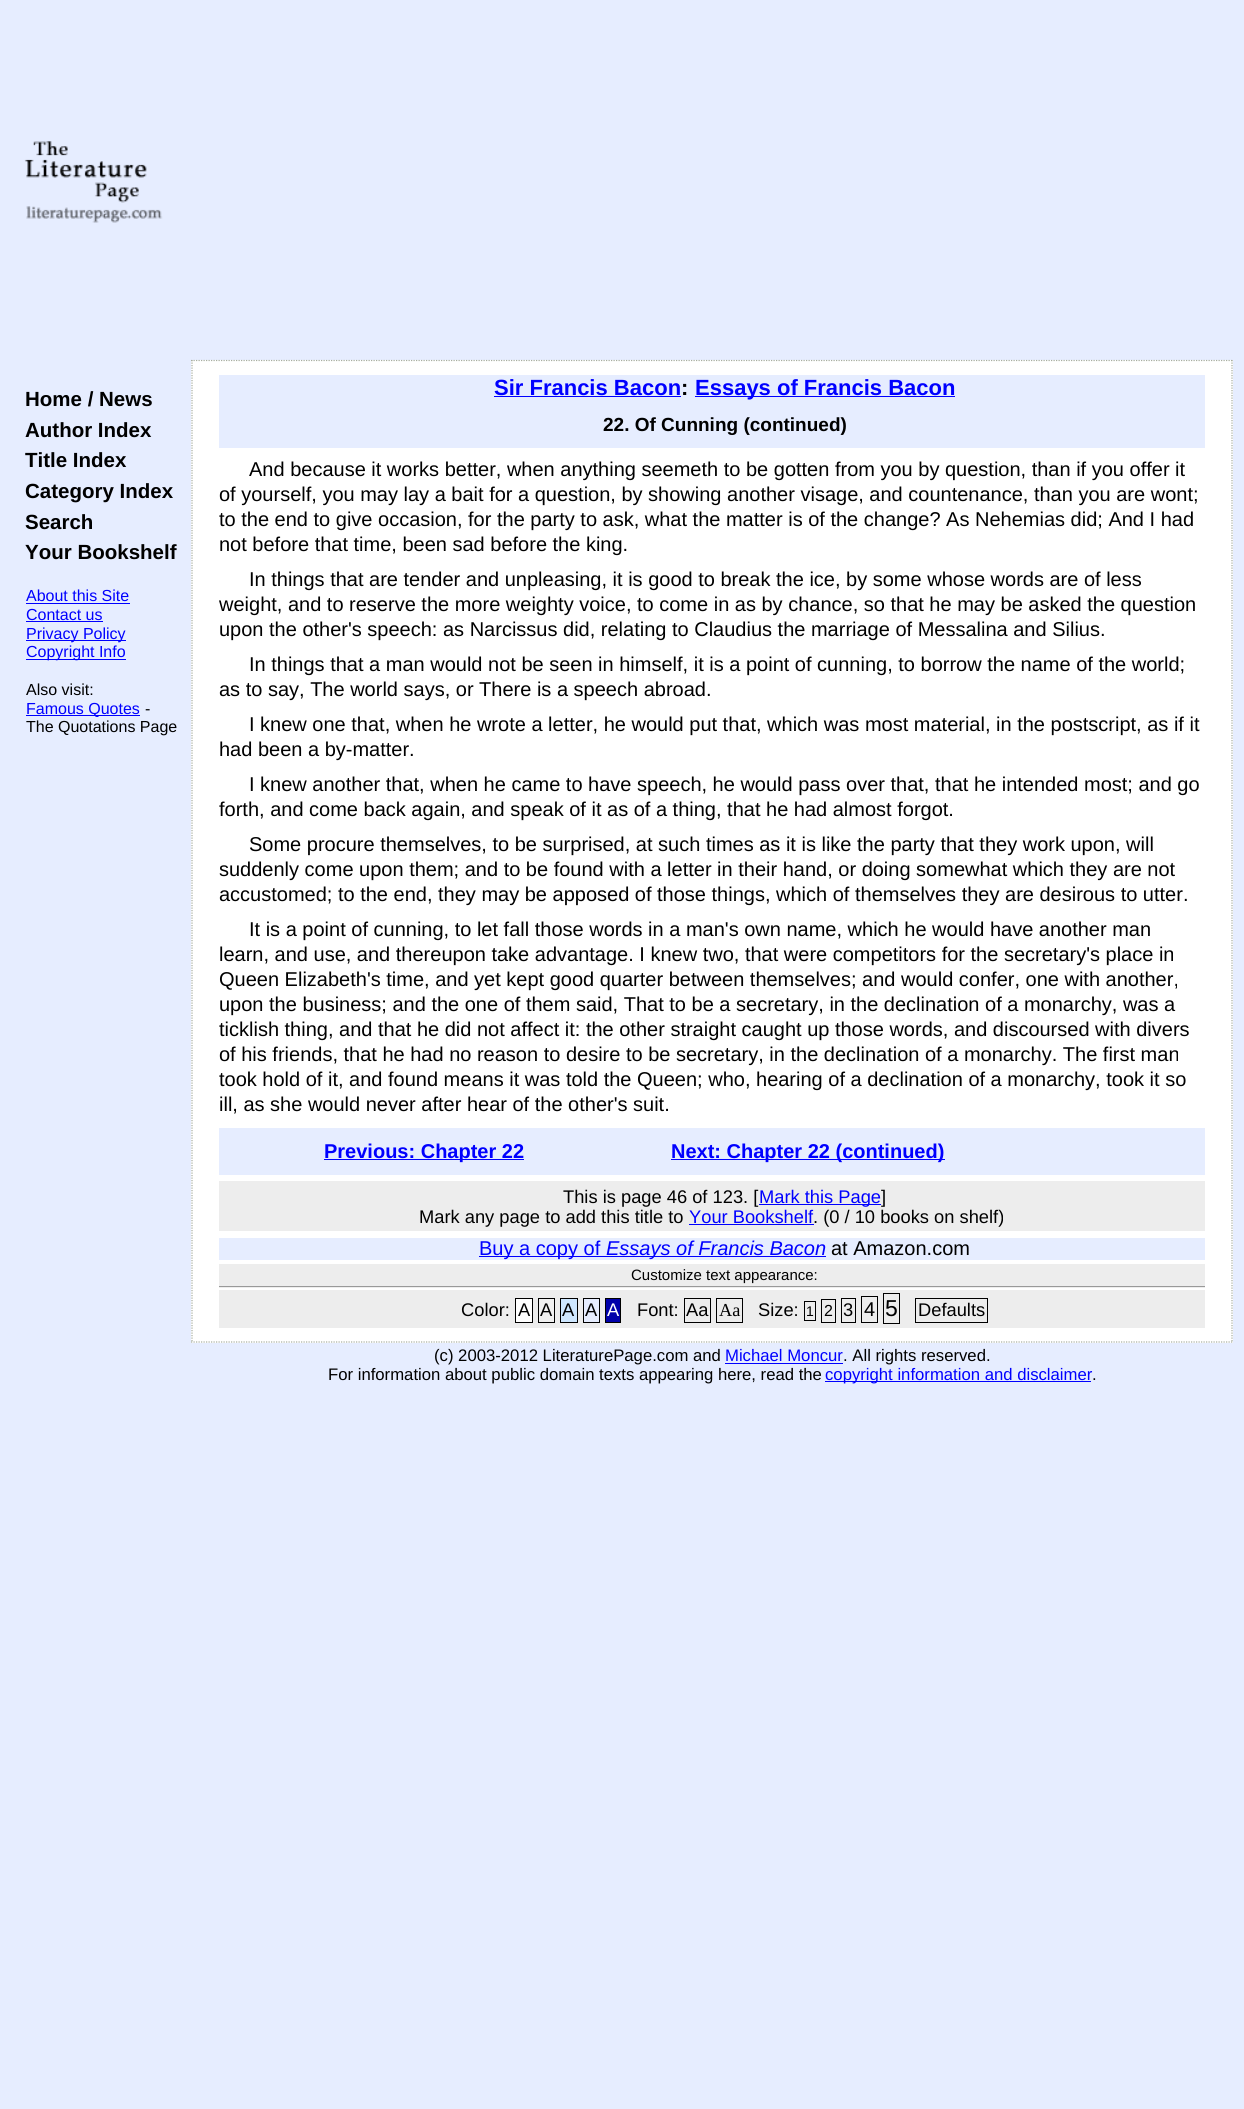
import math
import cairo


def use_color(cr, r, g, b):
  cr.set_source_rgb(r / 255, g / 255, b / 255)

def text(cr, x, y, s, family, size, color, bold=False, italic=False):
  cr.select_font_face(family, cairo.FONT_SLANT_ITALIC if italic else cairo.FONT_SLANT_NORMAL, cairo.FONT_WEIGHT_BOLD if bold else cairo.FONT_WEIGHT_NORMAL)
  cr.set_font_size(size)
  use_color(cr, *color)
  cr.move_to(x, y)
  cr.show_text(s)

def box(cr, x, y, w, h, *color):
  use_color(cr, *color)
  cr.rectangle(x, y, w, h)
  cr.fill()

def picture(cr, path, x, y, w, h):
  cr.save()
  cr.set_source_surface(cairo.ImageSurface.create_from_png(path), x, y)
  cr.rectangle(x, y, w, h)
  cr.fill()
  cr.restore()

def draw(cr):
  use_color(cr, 230, 237, 255)
  cr.paint()
  picture(cr, "img_01.png", 24, 141, 139, 82)
  box(cr, 26, 603, 104, 1, 0, 0, 255)
  box(cr, 26, 621, 77, 1, 0, 0, 255)
  box(cr, 26, 640, 100, 1, 0, 0, 255)
  box(cr, 26, 659, 100, 1, 0, 0, 255)
  box(cr, 26, 715, 114, 1, 0, 0, 255)
  box(cr, 191, 360, 1042, 983, 255, 255, 255)
  cr.new_path()
  cr.move_to(191, 360.5)
  cr.line_to(1232.5, 360.5)
  use_color(cr, 166, 173, 159)
  cr.set_line_width(1.2)
  cr.set_dash([1.25, 1.25])
  cr.stroke()
  cr.new_path()
  cr.move_to(1232, 360)
  cr.line_to(1232, 1342.5)
  cr.stroke()
  cr.new_path()
  cr.move_to(191, 1342)
  cr.line_to(1232.5, 1342)
  cr.stroke()
  cr.new_path()
  cr.move_to(192, 360)
  cr.line_to(192, 1342.5)
  cr.stroke()
  box(cr, 219, 375, 986, 73, 230, 237, 255)
  box(cr, 494, 396, 187, 1, 0, 0, 255)
  box(cr, 695, 396, 260, 1, 0, 0, 255)
  box(cr, 219, 1128, 986, 47, 230, 237, 255)
  box(cr, 324, 1159, 200, 1, 0, 0, 255)
  box(cr, 671, 1159, 274, 1, 0, 0, 255)
  box(cr, 219, 1181, 986, 50, 237, 237, 237)
  box(cr, 759, 1204, 122, 1, 0, 0, 255)
  box(cr, 689, 1224, 125, 1, 0, 0, 255)
  box(cr, 219, 1238, 986, 22, 230, 237, 255)
  box(cr, 479, 1256, 347, 1, 0, 0, 255)
  box(cr, 219, 1264, 986, 24, 237, 237, 237)
  box(cr, 219, 1286, 986, 1, 153, 153, 153)
  box(cr, 219, 1290, 986, 38, 237, 237, 237)
  use_color(cr, 255, 255, 255)
  cr.rectangle(515.5, 1298.5, 17, 24)
  cr.fill_preserve()
  use_color(cr, 0, 0, 0)
  cr.set_line_width(1)
  cr.set_dash([])
  cr.stroke()
  use_color(cr, 240, 240, 240)
  cr.rectangle(538.5, 1298.5, 16, 24)
  cr.fill_preserve()
  use_color(cr, 0, 0, 0)
  cr.stroke()
  use_color(cr, 206, 231, 255)
  cr.rectangle(560.5, 1298.5, 17, 24)
  cr.fill_preserve()
  use_color(cr, 0, 0, 0)
  cr.stroke()
  use_color(cr, 230, 237, 255)
  cr.rectangle(583.5, 1298.5, 16, 24)
  cr.fill_preserve()
  use_color(cr, 0, 0, 0)
  cr.stroke()
  use_color(cr, 0, 0, 170)
  cr.rectangle(605.5, 1298.5, 15, 24)
  cr.fill_preserve()
  use_color(cr, 0, 0, 0)
  cr.stroke()
  cr.rectangle(684.5, 1298.5, 26, 24)
  cr.stroke()
  cr.rectangle(716.5, 1298.5, 26, 24)
  cr.stroke()
  cr.rectangle(804.5, 1301.5, 11, 19)
  cr.stroke()
  cr.rectangle(821.5, 1299.5, 14, 23)
  cr.stroke()
  cr.rectangle(841.5, 1298.5, 14, 24)
  cr.stroke()
  cr.rectangle(861.5, 1296.5, 16, 26)
  cr.stroke()
  cr.rectangle(883.5, 1293.5, 16, 30)
  cr.stroke()
  cr.rectangle(915.5, 1298.5, 72, 24)
  cr.stroke()
  box(cr, 725, 1363, 118, 1, 0, 0, 255)
  box(cr, 825, 1381, 266, 1, 0, 0, 255)
  text(cr, 25, 406, "Home / News", "Liberation Sans", 20.5, (0, 0, 0), bold=True)
  text(cr, 25, 437, "Author Index", "Liberation Sans", 20.5, (0, 0, 0), bold=True)
  text(cr, 25, 467, "Title Index", "Liberation Sans", 20.5, (0, 0, 0), bold=True)
  text(cr, 25, 498, "Category Index", "Liberation Sans", 20.5, (0, 0, 0), bold=True)
  text(cr, 25, 529, "Search", "Liberation Sans", 20.5, (0, 0, 0), bold=True)
  text(cr, 25, 559, "Your Bookshelf", "Liberation Sans", 20.5, (0, 0, 0), bold=True)
  text(cr, 26, 601, "About this Site", "Liberation Sans", 16, (0, 0, 255))
  text(cr, 26, 620, "Contact us", "Liberation Sans", 16, (0, 0, 255))
  text(cr, 26, 639, "Privacy Policy", "Liberation Sans", 16, (0, 0, 255))
  text(cr, 26, 657, "Copyright Info", "Liberation Sans", 16, (0, 0, 255))
  text(cr, 26, 695, "Also visit:", "Liberation Sans", 16, (0, 0, 0))
  text(cr, 26, 714, "Famous Quotes", "Liberation Sans", 16, (0, 0, 255))
  text(cr, 145, 714, "-", "Liberation Sans", 16, (0, 0, 0))
  text(cr, 26, 732, "The Quotations Page", "Liberation Sans", 16, (0, 0, 0))
  text(cr, 494, 395, "Sir Francis Bacon", "Liberation Sans", 22, (0, 0, 255), bold=True)
  text(cr, 681, 395, ":", "Liberation Sans", 22, (0, 0, 0), bold=True)
  text(cr, 695, 395, "Essays of Francis Bacon", "Liberation Sans", 22, (0, 0, 255), bold=True)
  text(cr, 603, 431, "22. Of Cunning (continued)", "Liberation Sans", 19, (0, 0, 0), bold=True)
  text(cr, 249, 476, "And because it works better, when anything seemeth to be gotten from you by question, than if you offer it", "Liberation Sans", 20, (0, 0, 0))
  text(cr, 219, 501, "of yourself, you may lay a bait for a question, by showing another visage, and countenance, than you are wont;", "Liberation Sans", 20, (0, 0, 0))
  text(cr, 219, 526, "to the end to give occasion, for the party to ask, what the matter is of the change? As Nehemias did; And I had", "Liberation Sans", 20, (0, 0, 0))
  text(cr, 219, 551, "not before that time, been sad before the king.", "Liberation Sans", 20, (0, 0, 0))
  text(cr, 249, 586, "In things that are tender and unpleasing, it is good to break the ice, by some whose words are of less", "Liberation Sans", 20, (0, 0, 0))
  text(cr, 219, 611, "weight, and to reserve the more weighty voice, to come in as by chance, so that he may be asked the question", "Liberation Sans", 20, (0, 0, 0))
  text(cr, 219, 636, "upon the other's speech: as Narcissus did, relating to Claudius the marriage of Messalina and Silius.", "Liberation Sans", 20, (0, 0, 0))
  text(cr, 249, 671, "In things that a man would not be seen in himself, it is a point of cunning, to borrow the name of the world;", "Liberation Sans", 20, (0, 0, 0))
  text(cr, 219, 696, "as to say, The world says, or There is a speech abroad.", "Liberation Sans", 20, (0, 0, 0))
  text(cr, 249, 731, "I knew one that, when he wrote a letter, he would put that, which was most material, in the postscript, as if it", "Liberation Sans", 20, (0, 0, 0))
  text(cr, 219, 756, "had been a by-matter.", "Liberation Sans", 20, (0, 0, 0))
  text(cr, 249, 791, "I knew another that, when he came to have speech, he would pass over that, that he intended most; and go", "Liberation Sans", 20, (0, 0, 0))
  text(cr, 219, 816, "forth, and come back again, and speak of it as of a thing, that he had almost forgot.", "Liberation Sans", 20, (0, 0, 0))
  text(cr, 249, 851, "Some procure themselves, to be surprised, at such times as it is like the party that they work upon, will", "Liberation Sans", 20, (0, 0, 0))
  text(cr, 219, 876, "suddenly come upon them; and to be found with a letter in their hand, or doing somewhat which they are not", "Liberation Sans", 20, (0, 0, 0))
  text(cr, 219, 901, "accustomed; to the end, they may be apposed of those things, which of themselves they are desirous to utter.", "Liberation Sans", 20, (0, 0, 0))
  text(cr, 249, 936, "It is a point of cunning, to let fall those words in a man's own name, which he would have another man", "Liberation Sans", 20, (0, 0, 0))
  text(cr, 219, 961, "learn, and use, and thereupon take advantage. I knew two, that were competitors for the secretary's place in", "Liberation Sans", 20, (0, 0, 0))
  text(cr, 219, 986, "Queen Elizabeth's time, and yet kept good quarter between themselves; and would confer, one with another,", "Liberation Sans", 20, (0, 0, 0))
  text(cr, 219, 1011, "upon the business; and the one of them said, That to be a secretary, in the declination of a monarchy, was a", "Liberation Sans", 20, (0, 0, 0))
  text(cr, 219, 1036, "ticklish thing, and that he did not affect it: the other straight caught up those words, and discoursed with divers", "Liberation Sans", 20, (0, 0, 0))
  text(cr, 219, 1061, "of his friends, that he had no reason to desire to be secretary, in the declination of a monarchy. The first man", "Liberation Sans", 20, (0, 0, 0))
  text(cr, 219, 1086, "took hold of it, and found means it was told the Queen; who, hearing of a declination of a monarchy, took it so", "Liberation Sans", 20, (0, 0, 0))
  text(cr, 219, 1111, "ill, as she would never after hear of the other's suit.", "Liberation Sans", 20, (0, 0, 0))
  text(cr, 324, 1158, "Previous: Chapter 22", "Liberation Sans", 20, (0, 0, 255), bold=True)
  text(cr, 671, 1158, "Next: Chapter 22 (continued)", "Liberation Sans", 20, (0, 0, 255), bold=True)
  text(cr, 563, 1203, "This is page 46 of 123. [", "Liberation Sans", 18.3, (0, 0, 0))
  text(cr, 759, 1203, "Mark this Page", "Liberation Sans", 18.3, (0, 0, 255))
  text(cr, 881, 1203, "]", "Liberation Sans", 18.3, (0, 0, 0))
  text(cr, 419, 1223, "Mark any page to add this title to", "Liberation Sans", 18.3, (0, 0, 0))
  text(cr, 689, 1223, "Your Bookshelf", "Liberation Sans", 18.3, (0, 0, 255))
  text(cr, 813, 1223, ". (0 / 10 books on shelf)", "Liberation Sans", 18.3, (0, 0, 0))
  text(cr, 479, 1255, "Buy a copy of", "Liberation Sans", 20, (0, 0, 255))
  text(cr, 606, 1255, "Essays of Francis Bacon", "Liberation Sans", 20, (0, 0, 255), italic=True)
  text(cr, 831, 1255, "at Amazon.com", "Liberation Sans", 20, (0, 0, 0))
  text(cr, 631, 1280, "Customize text appearance:", "Liberation Sans", 15, (0, 0, 0))
  text(cr, 461, 1316, "Color:", "Liberation Sans", 18.3, (0, 0, 0))
  text(cr, 518, 1316, "A", "Liberation Sans", 18.3, (0, 0, 0))
  text(cr, 540, 1316, "A", "Liberation Sans", 18.3, (0, 0, 0))
  text(cr, 562, 1316, "A", "Liberation Sans", 18.3, (0, 0, 0))
  text(cr, 585, 1316, "A", "Liberation Sans", 18.3, (0, 0, 0))
  text(cr, 607, 1316, "A", "Liberation Sans", 18.3, (255, 255, 255))
  text(cr, 637, 1316, "Font:", "Liberation Sans", 18.3, (0, 0, 0))
  text(cr, 686, 1316, "Aa", "Liberation Sans", 18.3, (0, 0, 0))
  text(cr, 719, 1316, "Aa", "Liberation Serif", 18.3, (0, 0, 0))
  text(cr, 758, 1316, "Size:", "Liberation Sans", 18.3, (0, 0, 0))
  text(cr, 806, 1316, "1", "Liberation Sans", 14, (0, 0, 0))
  text(cr, 824, 1316, "2", "Liberation Sans", 16, (0, 0, 0))
  text(cr, 843, 1316, "3", "Liberation Sans", 18.3, (0, 0, 0))
  text(cr, 864, 1316, "4", "Liberation Sans", 20, (0, 0, 0))
  text(cr, 885, 1316, "5", "Liberation Sans", 23, (0, 0, 0))
  text(cr, 918, 1316, "Defaults", "Liberation Sans", 18.3, (0, 0, 0))
  text(cr, 434, 1361, "(c) 2003-2012 LiteraturePage.com and", "Liberation Sans", 16.7, (0, 0, 0))
  text(cr, 725, 1361, "Michael Moncur", "Liberation Sans", 16.7, (0, 0, 255))
  text(cr, 843, 1361, ". All rights reserved.", "Liberation Sans", 16.7, (0, 0, 0))
  text(cr, 328, 1380, "For information about public domain texts appearing here, read the", "Liberation Sans", 16.7, (0, 0, 0))
  text(cr, 825, 1380, "copyright information and disclaimer", "Liberation Sans", 16.7, (0, 0, 255))
  text(cr, 1092, 1380, ".", "Liberation Sans", 16.7, (0, 0, 0))


surface = cairo.ImageSurface(cairo.FORMAT_RGB24, 1244, 2109)
cr = cairo.Context(surface)
options = cairo.FontOptions()
options.set_hint_metrics(cairo.HINT_METRICS_OFF)
options.set_hint_style(cairo.HINT_STYLE_NONE)
cr.set_font_options(options)
cr.set_miter_limit(4)
draw(cr)
surface.write_to_png("out.png")
